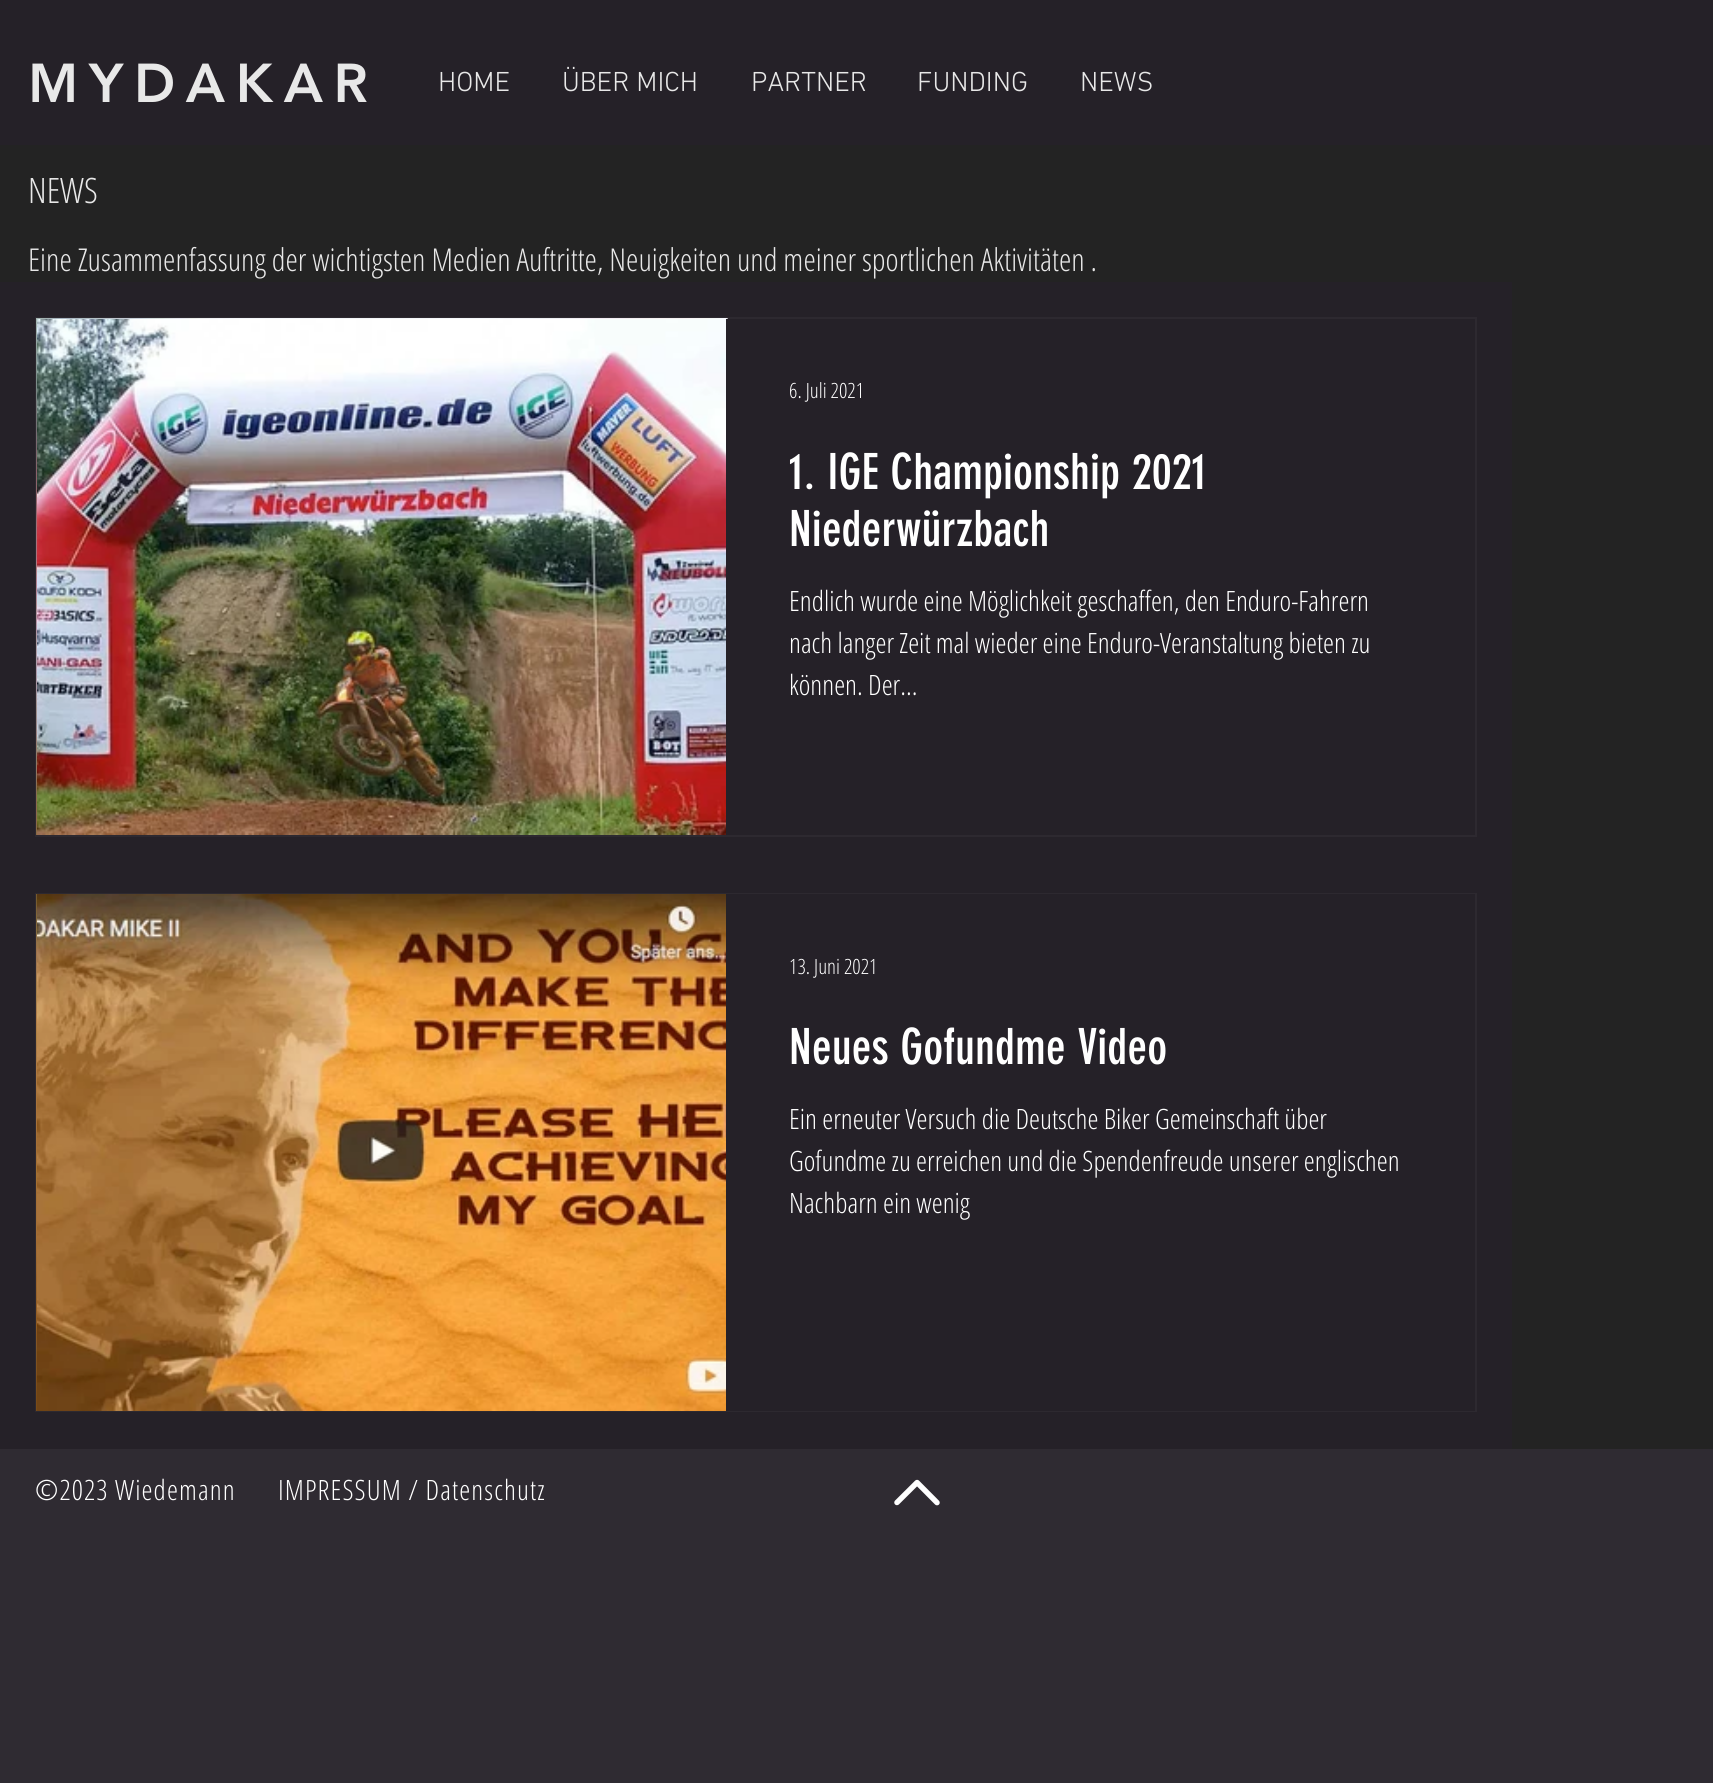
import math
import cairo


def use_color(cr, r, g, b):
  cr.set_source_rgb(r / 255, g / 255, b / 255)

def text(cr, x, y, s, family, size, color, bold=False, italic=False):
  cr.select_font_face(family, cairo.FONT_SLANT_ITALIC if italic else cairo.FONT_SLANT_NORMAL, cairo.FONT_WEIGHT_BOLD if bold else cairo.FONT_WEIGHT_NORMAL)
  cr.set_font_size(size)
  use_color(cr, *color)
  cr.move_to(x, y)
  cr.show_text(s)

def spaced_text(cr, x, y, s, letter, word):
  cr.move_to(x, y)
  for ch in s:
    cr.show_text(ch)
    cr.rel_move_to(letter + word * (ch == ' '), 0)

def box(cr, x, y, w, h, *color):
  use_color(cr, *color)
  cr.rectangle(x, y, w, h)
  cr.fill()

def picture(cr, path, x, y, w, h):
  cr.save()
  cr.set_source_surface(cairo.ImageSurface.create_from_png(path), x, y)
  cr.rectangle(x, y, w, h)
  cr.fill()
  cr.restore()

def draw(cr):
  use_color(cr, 47, 43, 50)
  cr.paint()
  box(cr, 0, 0, 1713, 145, 37, 33, 40)
  box(cr, 0, 145, 1713, 1304, 35, 35, 35)
  box(cr, 0, 282, 1512, 1167, 37, 33, 40)
  cr.rectangle(36, 318, 1440, 518)
  use_color(cr, 45, 41, 48)
  cr.stroke()
  picture(cr, "img_01.png", 36, 318, 692, 517)
  picture(cr, "img_02.png", 37, 319, 689, 516)
  box(cr, 726, 319, 2, 516, 37, 33, 40)
  cr.rectangle(36, 894, 1440, 517)
  use_color(cr, 45, 41, 48)
  cr.stroke()
  picture(cr, "img_03.png", 36, 894, 1, 517)
  picture(cr, "img_04.png", 37, 894, 689, 517)
  box(cr, 726, 894, 749, 517, 37, 33, 40)
  picture(cr, "img_05.png", 894, 1479, 46, 27)
  cr.select_font_face("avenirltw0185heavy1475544 Black")
  cr.set_font_size(54.25)
  use_color(cr, 232, 232, 232)
  spaced_text(cr, 28, 102, "MYDAKAR", 10.75, 0)
  text(cr, 438, 91, "HOME", "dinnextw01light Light", 28, (232, 232, 232))
  text(cr, 562, 91, "ÜBER MICH", "dinnextw01light Light", 28, (232, 232, 232))
  text(cr, 751, 91, "PARTNER", "dinnextw01light Light", 28, (232, 232, 232))
  text(cr, 917, 91, "FUNDING", "dinnextw01light Light", 28, (232, 232, 232))
  text(cr, 1080, 91, "NEWS", "dinnextw01light Light", 28, (232, 232, 232))
  text(cr, 28, 203, "NEWS", "Open Sans Condensed Light", 35, (232, 232, 232))
  text(cr, 28, 271, "Eine Zusammenfassung der wichtigsten Medien Auftritte, Neuigkeiten und meiner sportlichen Aktivitäten .", "Open Sans Condensed Light", 31.5, (232, 232, 232))
  text(cr, 789, 398, "6. Juli 2021", "Open Sans Condensed Light", 21, (255, 255, 255))
  text(cr, 789, 489, "1. IGE Championship 2021", "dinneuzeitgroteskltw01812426", 49, (255, 255, 255))
  text(cr, 789, 546, "Niederwürzbach", "dinneuzeitgroteskltw01812426", 49, (255, 255, 255))
  text(cr, 789, 611, "Endlich wurde eine Möglichkeit geschaffen, den Enduro-Fahrern", "Open Sans Condensed Light", 28, (255, 255, 255))
  text(cr, 789, 653, "nach langer Zeit mal wieder eine Enduro-Veranstaltung bieten zu", "Open Sans Condensed Light", 28, (255, 255, 255))
  text(cr, 789, 695, "können. Der...", "Open Sans Condensed Light", 28, (255, 255, 255))
  text(cr, 789, 974, "13. Juni 2021", "Open Sans Condensed Light", 21, (255, 255, 255))
  text(cr, 789, 1064, "Neues Gofundme Video", "dinneuzeitgroteskltw01812426", 49, (255, 255, 255))
  text(cr, 789, 1129, "Ein erneuter Versuch die Deutsche Biker Gemeinschaft über", "Open Sans Condensed Light", 28, (255, 255, 255))
  text(cr, 789, 1171, "Gofundme zu erreichen und die Spendenfreude unserer englischen", "Open Sans Condensed Light", 28, (255, 255, 255))
  text(cr, 789, 1213, "Nachbarn ein wenig", "Open Sans Condensed Light", 28, (255, 255, 255))
  spaced_text(cr, 35, 1500, "©2023 Wiedemann", 1.1, 0)
  spaced_text(cr, 278, 1500, "IMPRESSUM / Datenschutz", 1.1, 0)


surface = cairo.ImageSurface(cairo.FORMAT_RGB24, 1713, 1783)
cr = cairo.Context(surface)
options = cairo.FontOptions()
options.set_hint_metrics(cairo.HINT_METRICS_OFF)
options.set_hint_style(cairo.HINT_STYLE_NONE)
cr.set_font_options(options)
cr.set_miter_limit(4)
draw(cr)
surface.write_to_png("out.png")
